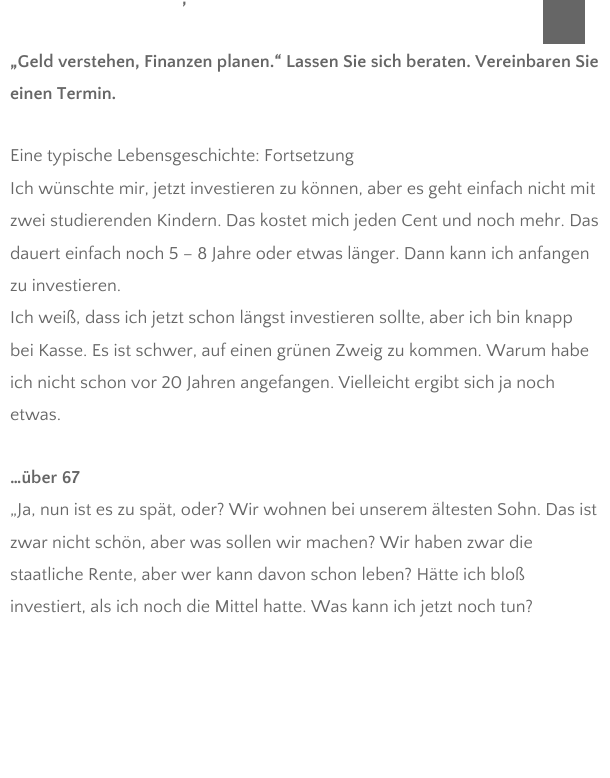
import math
import cairo


def use_color(cr, r, g, b):
  cr.set_source_rgb(r / 255, g / 255, b / 255)

def text(cr, x, y, s, family, size, color, bold=False, italic=False):
  cr.select_font_face(family, cairo.FONT_SLANT_ITALIC if italic else cairo.FONT_SLANT_NORMAL, cairo.FONT_WEIGHT_BOLD if bold else cairo.FONT_WEIGHT_NORMAL)
  cr.set_font_size(size)
  use_color(cr, *color)
  cr.move_to(x, y)
  cr.show_text(s)

def box(cr, x, y, w, h, *color):
  use_color(cr, *color)
  cr.rectangle(x, y, w, h)
  cr.fill()

def draw(cr):
  use_color(cr, 255, 255, 255)
  cr.paint()
  box(cr, 543, 0, 42, 44, 102, 102, 102)
  text(cr, 182, 4, ",", "Quattrocento Sans", 18, (102, 102, 102), bold=True)
  text(cr, 10, 67, "„Geld verstehen, Finanzen planen.“ Lassen Sie sich beraten. Vereinbaren Sie", "Quattrocento Sans", 18, (102, 102, 102), bold=True)
  text(cr, 10, 99, "einen Termin.", "Quattrocento Sans", 18, (102, 102, 102), bold=True)
  text(cr, 10, 161, "Eine typische Lebensgeschichte: Fortsetzung", "Quattrocento Sans", 18, (102, 102, 102))
  text(cr, 10, 194, "Ich wünschte mir, jetzt investieren zu können, aber es geht einfach nicht mit", "Quattrocento Sans", 18, (102, 102, 102))
  text(cr, 10, 226, "zwei studierenden Kindern. Das kostet mich jeden Cent und noch mehr. Das", "Quattrocento Sans", 18, (102, 102, 102))
  text(cr, 10, 259, "dauert einfach noch 5 – 8 Jahre oder etwas länger. Dann kann ich anfangen", "Quattrocento Sans", 18, (102, 102, 102))
  text(cr, 10, 291, "zu investieren.", "Quattrocento Sans", 18, (102, 102, 102))
  text(cr, 10, 323, "Ich weiß, dass ich jetzt schon längst investieren sollte, aber ich bin knapp", "Quattrocento Sans", 18, (102, 102, 102))
  text(cr, 10, 356, "bei Kasse. Es ist schwer, auf einen grünen Zweig zu kommen. Warum habe", "Quattrocento Sans", 18, (102, 102, 102))
  text(cr, 10, 388, "ich nicht schon vor 20 Jahren angefangen. Vielleicht ergibt sich ja noch", "Quattrocento Sans", 18, (102, 102, 102))
  text(cr, 10, 420, "etwas.", "Quattrocento Sans", 18, (102, 102, 102))
  text(cr, 10, 483, "…über 67", "Quattrocento Sans", 18, (102, 102, 102), bold=True)
  text(cr, 10, 515, "„Ja, nun ist es zu spät, oder? Wir wohnen bei unserem ältesten Sohn. Das ist", "Quattrocento Sans", 18, (102, 102, 102))
  text(cr, 10, 548, "zwar nicht schön, aber was sollen wir machen? Wir haben zwar die", "Quattrocento Sans", 18, (102, 102, 102))
  text(cr, 10, 580, "staatliche Rente, aber wer kann davon schon leben? Hätte ich bloß", "Quattrocento Sans", 18, (102, 102, 102))
  text(cr, 10, 612, "investiert, als ich noch die Mittel hatte. Was kann ich jetzt noch tun?", "Quattrocento Sans", 18, (102, 102, 102))


surface = cairo.ImageSurface(cairo.FORMAT_RGB24, 610, 778)
cr = cairo.Context(surface)
options = cairo.FontOptions()
options.set_hint_metrics(cairo.HINT_METRICS_OFF)
options.set_hint_style(cairo.HINT_STYLE_NONE)
cr.set_font_options(options)
cr.set_miter_limit(4)
draw(cr)
surface.write_to_png("out.png")
